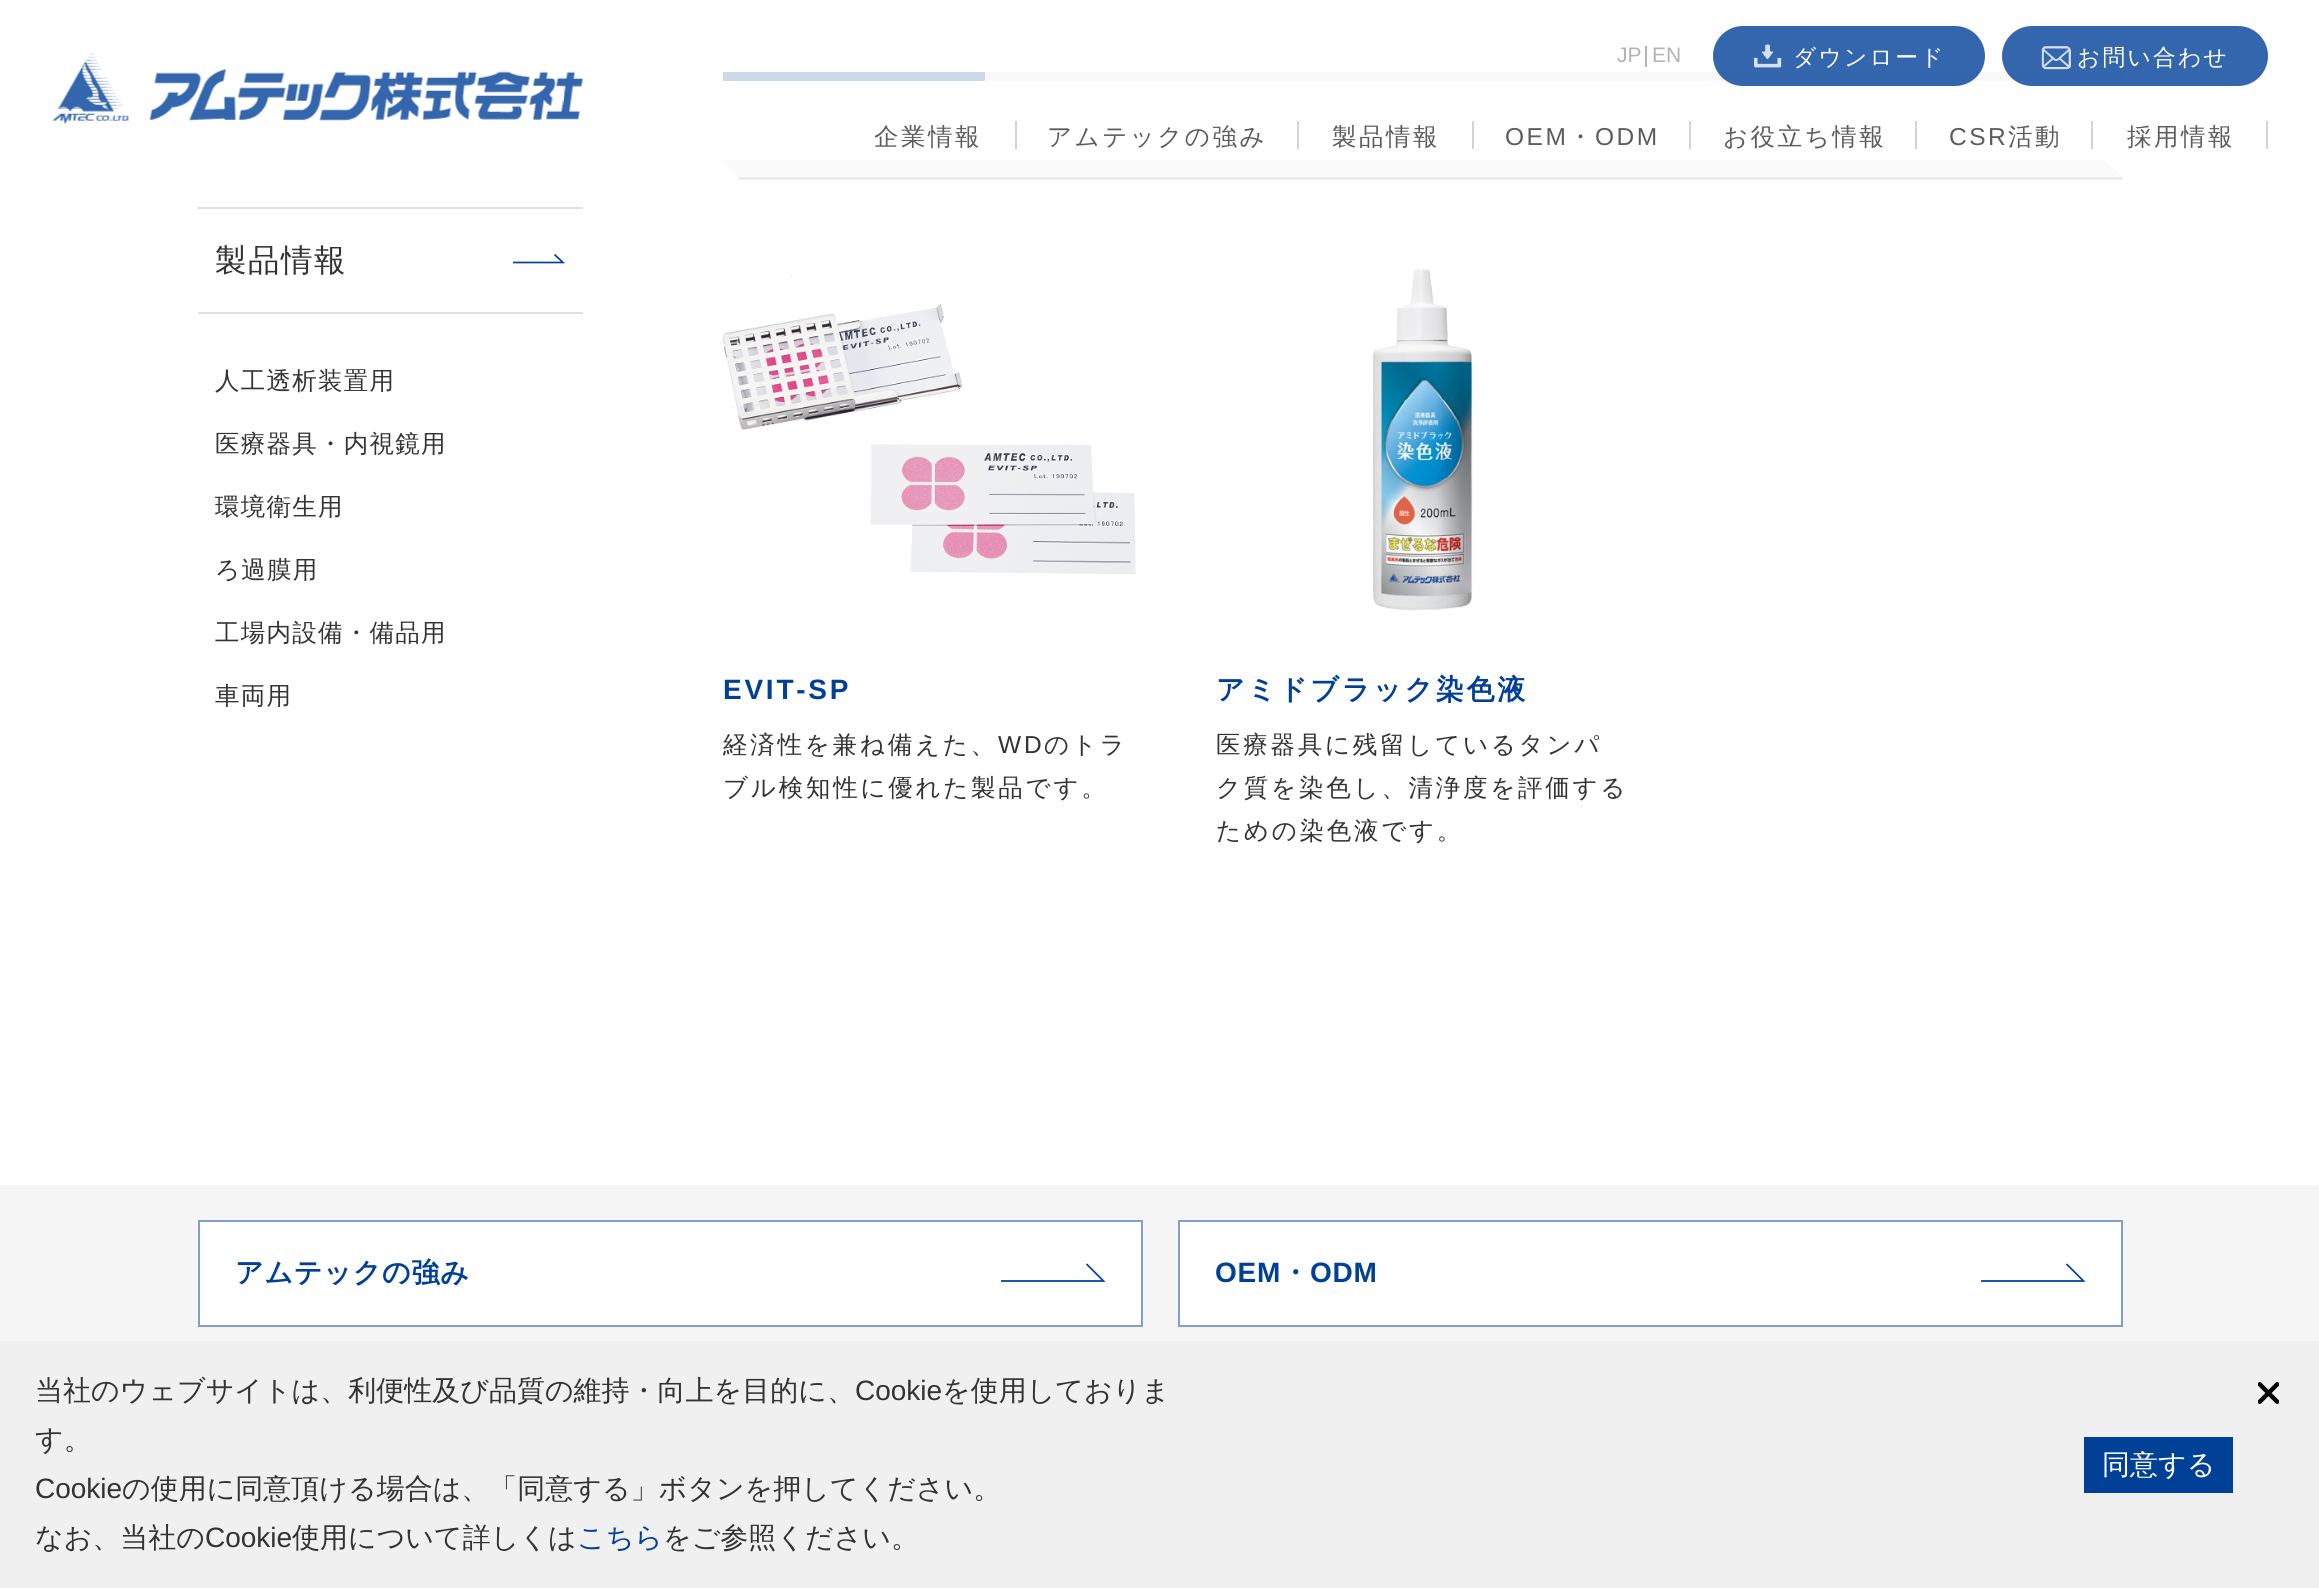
import math
import cairo


def use_color(cr, r, g, b):
  cr.set_source_rgb(r / 255, g / 255, b / 255)

def text(cr, x, y, s, family, size, color, bold=False, italic=False):
  cr.select_font_face(family, cairo.FONT_SLANT_ITALIC if italic else cairo.FONT_SLANT_NORMAL, cairo.FONT_WEIGHT_BOLD if bold else cairo.FONT_WEIGHT_NORMAL)
  cr.set_font_size(size)
  use_color(cr, *color)
  cr.move_to(x, y)
  cr.show_text(s)

def spaced_text(cr, x, y, s, letter, word):
  cr.move_to(x, y)
  for ch in s:
    cr.show_text(ch)
    cr.rel_move_to(letter + word * (ch == ' '), 0)

def box(cr, x, y, w, h, *color):
  use_color(cr, *color)
  cr.rectangle(x, y, w, h)
  cr.fill()

def round_rect(cr, x, y, w, h, r):
  cr.new_sub_path()
  for i, (u, v) in enumerate([(x + w - r, y + h - r), (x + r, y + h - r), (x + r, y + r), (x + w - r, y + r)]):
    cr.arc(u, v, r, i * math.pi / 2, (i + 1) * math.pi / 2)
  cr.close_path()

def picture(cr, path, x, y, w, h):
  cr.save()
  cr.set_source_surface(cairo.ImageSurface.create_from_png(path), x, y)
  cr.rectangle(x, y, w, h)
  cr.fill()
  cr.restore()

def draw(cr):
  use_color(cr, 255, 255, 255)
  cr.paint()
  box(cr, 723, 72, 262, 9, 0, 64, 151)
  box(cr, 985, 72, 1138, 9, 224, 224, 224)
  use_color(cr, 235, 235, 235)
  cr.new_path()
  cr.move_to(723, 163)
  cr.line_to(723, 160)
  cr.line_to(2105, 160)
  cr.line_to(2123, 177)
  cr.line_to(2123, 180)
  cr.line_to(740, 180)
  cr.close_path()
  cr.fill()
  cr.set_source_rgba(1, 1, 1, 0.8)
  cr.rectangle(723, 72, 1400, 105)
  cr.fill()
  picture(cr, "img_01.png", 53, 53, 530, 71)
  box(cr, 1645, 46, 2, 21, 178, 179, 179)
  cr.set_source_rgba(0, 0.251, 0.592, 0.8)
  round_rect(cr, 1713, 26, 272, 60, 30)
  cr.fill()
  picture(cr, "img_02.png", 1754, 44, 28, 24)
  round_rect(cr, 2002, 26, 266, 60, 30)
  cr.fill()
  picture(cr, "img_03.png", 2041, 46, 30, 24)
  box(cr, 1015, 121, 2, 28, 211, 211, 211)
  box(cr, 1297, 121, 2, 28, 211, 211, 211)
  box(cr, 1472, 121, 2, 28, 211, 211, 211)
  box(cr, 1689, 121, 2, 28, 211, 211, 211)
  box(cr, 1915, 121, 2, 28, 211, 211, 211)
  box(cr, 2091, 121, 2, 28, 211, 211, 211)
  box(cr, 2266, 121, 2, 28, 211, 211, 211)
  cr.new_path()
  cr.move_to(513, 262.5)
  cr.line_to(563, 262.5)
  cr.line_to(554.5, 254.5)
  use_color(cr, 0, 64, 151)
  cr.set_line_width(1.7)
  cr.stroke()
  box(cr, 198, 207, 385, 2, 224, 224, 224)
  box(cr, 198, 312, 385, 2, 224, 224, 224)
  picture(cr, "img_04.png", 722, 275, 414, 299)
  picture(cr, "img_05.png", 1372, 268, 101, 343)
  box(cr, 0, 1185, 2319, 156, 245, 245, 245)
  box(cr, 200, 1222, 941, 103, 255, 255, 255)
  cr.new_path()
  cr.move_to(1001, 1281)
  cr.line_to(1103.5, 1281)
  cr.line_to(1086.5, 1264)
  use_color(cr, 0, 64, 151)
  cr.stroke()
  cr.rectangle(199, 1221, 943, 105)
  use_color(cr, 128, 159, 203)
  cr.set_line_width(2)
  cr.stroke()
  box(cr, 1180, 1222, 941, 103, 255, 255, 255)
  cr.new_path()
  cr.move_to(1981, 1281)
  cr.line_to(2083.5, 1281)
  cr.line_to(2066.5, 1264)
  use_color(cr, 0, 64, 151)
  cr.set_line_width(1.7)
  cr.stroke()
  cr.rectangle(1179, 1221, 943, 105)
  use_color(cr, 128, 159, 203)
  cr.set_line_width(2)
  cr.stroke()
  box(cr, 0, 1341, 2319, 247, 240, 240, 240)
  picture(cr, "img_06.png", 2258, 1382, 21, 22)
  box(cr, 2084, 1437, 149, 56, 0, 64, 151)
  text(cr, 1617, 62, "JP", "Liberation Sans", 21, (178, 179, 179))
  text(cr, 1652, 62, "EN", "Liberation Sans", 21, (178, 179, 179))
  cr.select_font_face("WenQuanYi Zen Hei Medium")
  cr.set_font_size(22.75)
  use_color(cr, 255, 255, 255)
  spaced_text(cr, 1793, 65, "ダウンロード", 2.25, 0)
  spaced_text(cr, 2077, 65, "お問い合わせ", 2.25, 0)
  cr.set_font_size(24.5)
  use_color(cr, 92, 92, 92)
  spaced_text(cr, 874, 145, "企業情報", 2.5, 0)
  spaced_text(cr, 1047, 145, "アムテックの強み", 2.5, 0)
  spaced_text(cr, 1332, 145, "製品情報", 2.5, 0)
  cr.select_font_face("Liberation Sans")
  spaced_text(cr, 1505, 145, "OEM", 2.5, 0)
  cr.select_font_face("WenQuanYi Zen Hei Medium")
  spaced_text(cr, 1568, 145, "・", 2.5, 0)
  cr.select_font_face("Liberation Sans")
  spaced_text(cr, 1595, 145, "ODM", 2.5, 0)
  cr.select_font_face("WenQuanYi Zen Hei Medium")
  spaced_text(cr, 1723, 145, "お役立ち情報", 2.5, 0)
  cr.select_font_face("Liberation Sans")
  spaced_text(cr, 1949, 145, "CSR", 2.5, 0)
  cr.select_font_face("WenQuanYi Zen Hei Medium")
  spaced_text(cr, 2008, 145, "活動", 2.5, 0)
  spaced_text(cr, 2127, 145, "採用情報", 2.5, 0)
  cr.set_font_size(31.5)
  use_color(cr, 51, 51, 51)
  spaced_text(cr, 215, 271, "製品情報", 1.5, 0)
  cr.set_font_size(24.5)
  spaced_text(cr, 215, 389, "人工透析装置用", 1.25, 0)
  spaced_text(cr, 215, 452, "医療器具・内視鏡用", 1.25, 0)
  spaced_text(cr, 215, 515, "環境衛生用", 1.25, 0)
  spaced_text(cr, 215, 578, "ろ過膜用", 1.25, 0)
  spaced_text(cr, 215, 641, "工場内設備・備品用", 1.25, 0)
  spaced_text(cr, 215, 704, "車両用", 1.25, 0)
  cr.select_font_face("Liberation Sans", cairo.FONT_SLANT_NORMAL, cairo.FONT_WEIGHT_BOLD)
  cr.set_font_size(28)
  use_color(cr, 0, 64, 151)
  spaced_text(cr, 723, 699, "EVIT-SP", 2.75, 0)
  cr.select_font_face("WenQuanYi Zen Hei Medium")
  cr.set_font_size(24.5)
  use_color(cr, 51, 51, 51)
  spaced_text(cr, 723, 753, "経済性を兼ね備えた、", 2.75, 0)
  cr.select_font_face("Liberation Sans")
  spaced_text(cr, 998, 753, "WD", 2.75, 0)
  cr.select_font_face("WenQuanYi Zen Hei Medium")
  spaced_text(cr, 1044, 753, "のトラ", 2.75, 0)
  spaced_text(cr, 723, 796, "ブル検知性に優れた製品です。", 2.75, 0)
  cr.select_font_face("WenQuanYi Zen Hei", cairo.FONT_SLANT_NORMAL, cairo.FONT_WEIGHT_BOLD)
  cr.set_font_size(28)
  use_color(cr, 0, 64, 151)
  spaced_text(cr, 1216, 699, "アミドブラック染色液", 2.75, 0)
  cr.select_font_face("WenQuanYi Zen Hei Medium")
  cr.set_font_size(24.5)
  use_color(cr, 51, 51, 51)
  spaced_text(cr, 1216, 753, "医療器具に残留しているタンパ", 2.75, 0)
  spaced_text(cr, 1216, 796, "ク質を染色し、清浄度を評価する", 2.75, 0)
  spaced_text(cr, 1216, 839, "ための染色液です。", 2.75, 0)
  cr.select_font_face("WenQuanYi Zen Hei", cairo.FONT_SLANT_NORMAL, cairo.FONT_WEIGHT_BOLD)
  cr.set_font_size(28)
  use_color(cr, 0, 64, 151)
  spaced_text(cr, 235, 1282, "アムテックの強み", 0.75, 0)
  cr.select_font_face("Liberation Sans", cairo.FONT_SLANT_NORMAL, cairo.FONT_WEIGHT_BOLD)
  spaced_text(cr, 1215, 1282, "OEM", 0.75, 0)
  cr.select_font_face("WenQuanYi Zen Hei", cairo.FONT_SLANT_NORMAL, cairo.FONT_WEIGHT_BOLD)
  spaced_text(cr, 1281, 1282, "・", 0.75, 0)
  cr.select_font_face("Liberation Sans", cairo.FONT_SLANT_NORMAL, cairo.FONT_WEIGHT_BOLD)
  spaced_text(cr, 1310, 1282, "ODM", 0.75, 0)
  text(cr, 35, 1400, "当社のウェブサイトは、利便性及び品質の維持・向上を目的に、", "WenQuanYi Zen Hei Medium", 28, (51, 51, 51))
  text(cr, 855, 1400, "Cookie", "Liberation Sans", 28, (51, 51, 51))
  text(cr, 942, 1400, "を使用しておりま", "WenQuanYi Zen Hei Medium", 28, (51, 51, 51))
  text(cr, 35, 1449, "す。", "WenQuanYi Zen Hei Medium", 28, (51, 51, 51))
  text(cr, 35, 1498, "Cookie", "Liberation Sans", 28, (51, 51, 51))
  text(cr, 122, 1498, "の使用に同意頂ける場合は、「同意する」ボタンを押してください。", "WenQuanYi Zen Hei Medium", 28, (51, 51, 51))
  text(cr, 35, 1547, "なお、当社の", "WenQuanYi Zen Hei Medium", 28, (51, 51, 51))
  text(cr, 205, 1547, "Cookie", "Liberation Sans", 28, (51, 51, 51))
  text(cr, 292, 1547, "使用について詳しくは", "WenQuanYi Zen Hei Medium", 28, (51, 51, 51))
  text(cr, 577, 1547, "こちら", "WenQuanYi Zen Hei Medium", 28, (0, 64, 151))
  text(cr, 663, 1547, "をご参照ください。", "WenQuanYi Zen Hei Medium", 28, (51, 51, 51))
  text(cr, 2102, 1474, "同意する", "WenQuanYi Zen Hei Medium", 28, (255, 255, 255))


surface = cairo.ImageSurface(cairo.FORMAT_RGB24, 2319, 1588)
cr = cairo.Context(surface)
options = cairo.FontOptions()
options.set_hint_metrics(cairo.HINT_METRICS_OFF)
options.set_hint_style(cairo.HINT_STYLE_NONE)
cr.set_font_options(options)
cr.set_miter_limit(4)
draw(cr)
surface.write_to_png("out.png")
